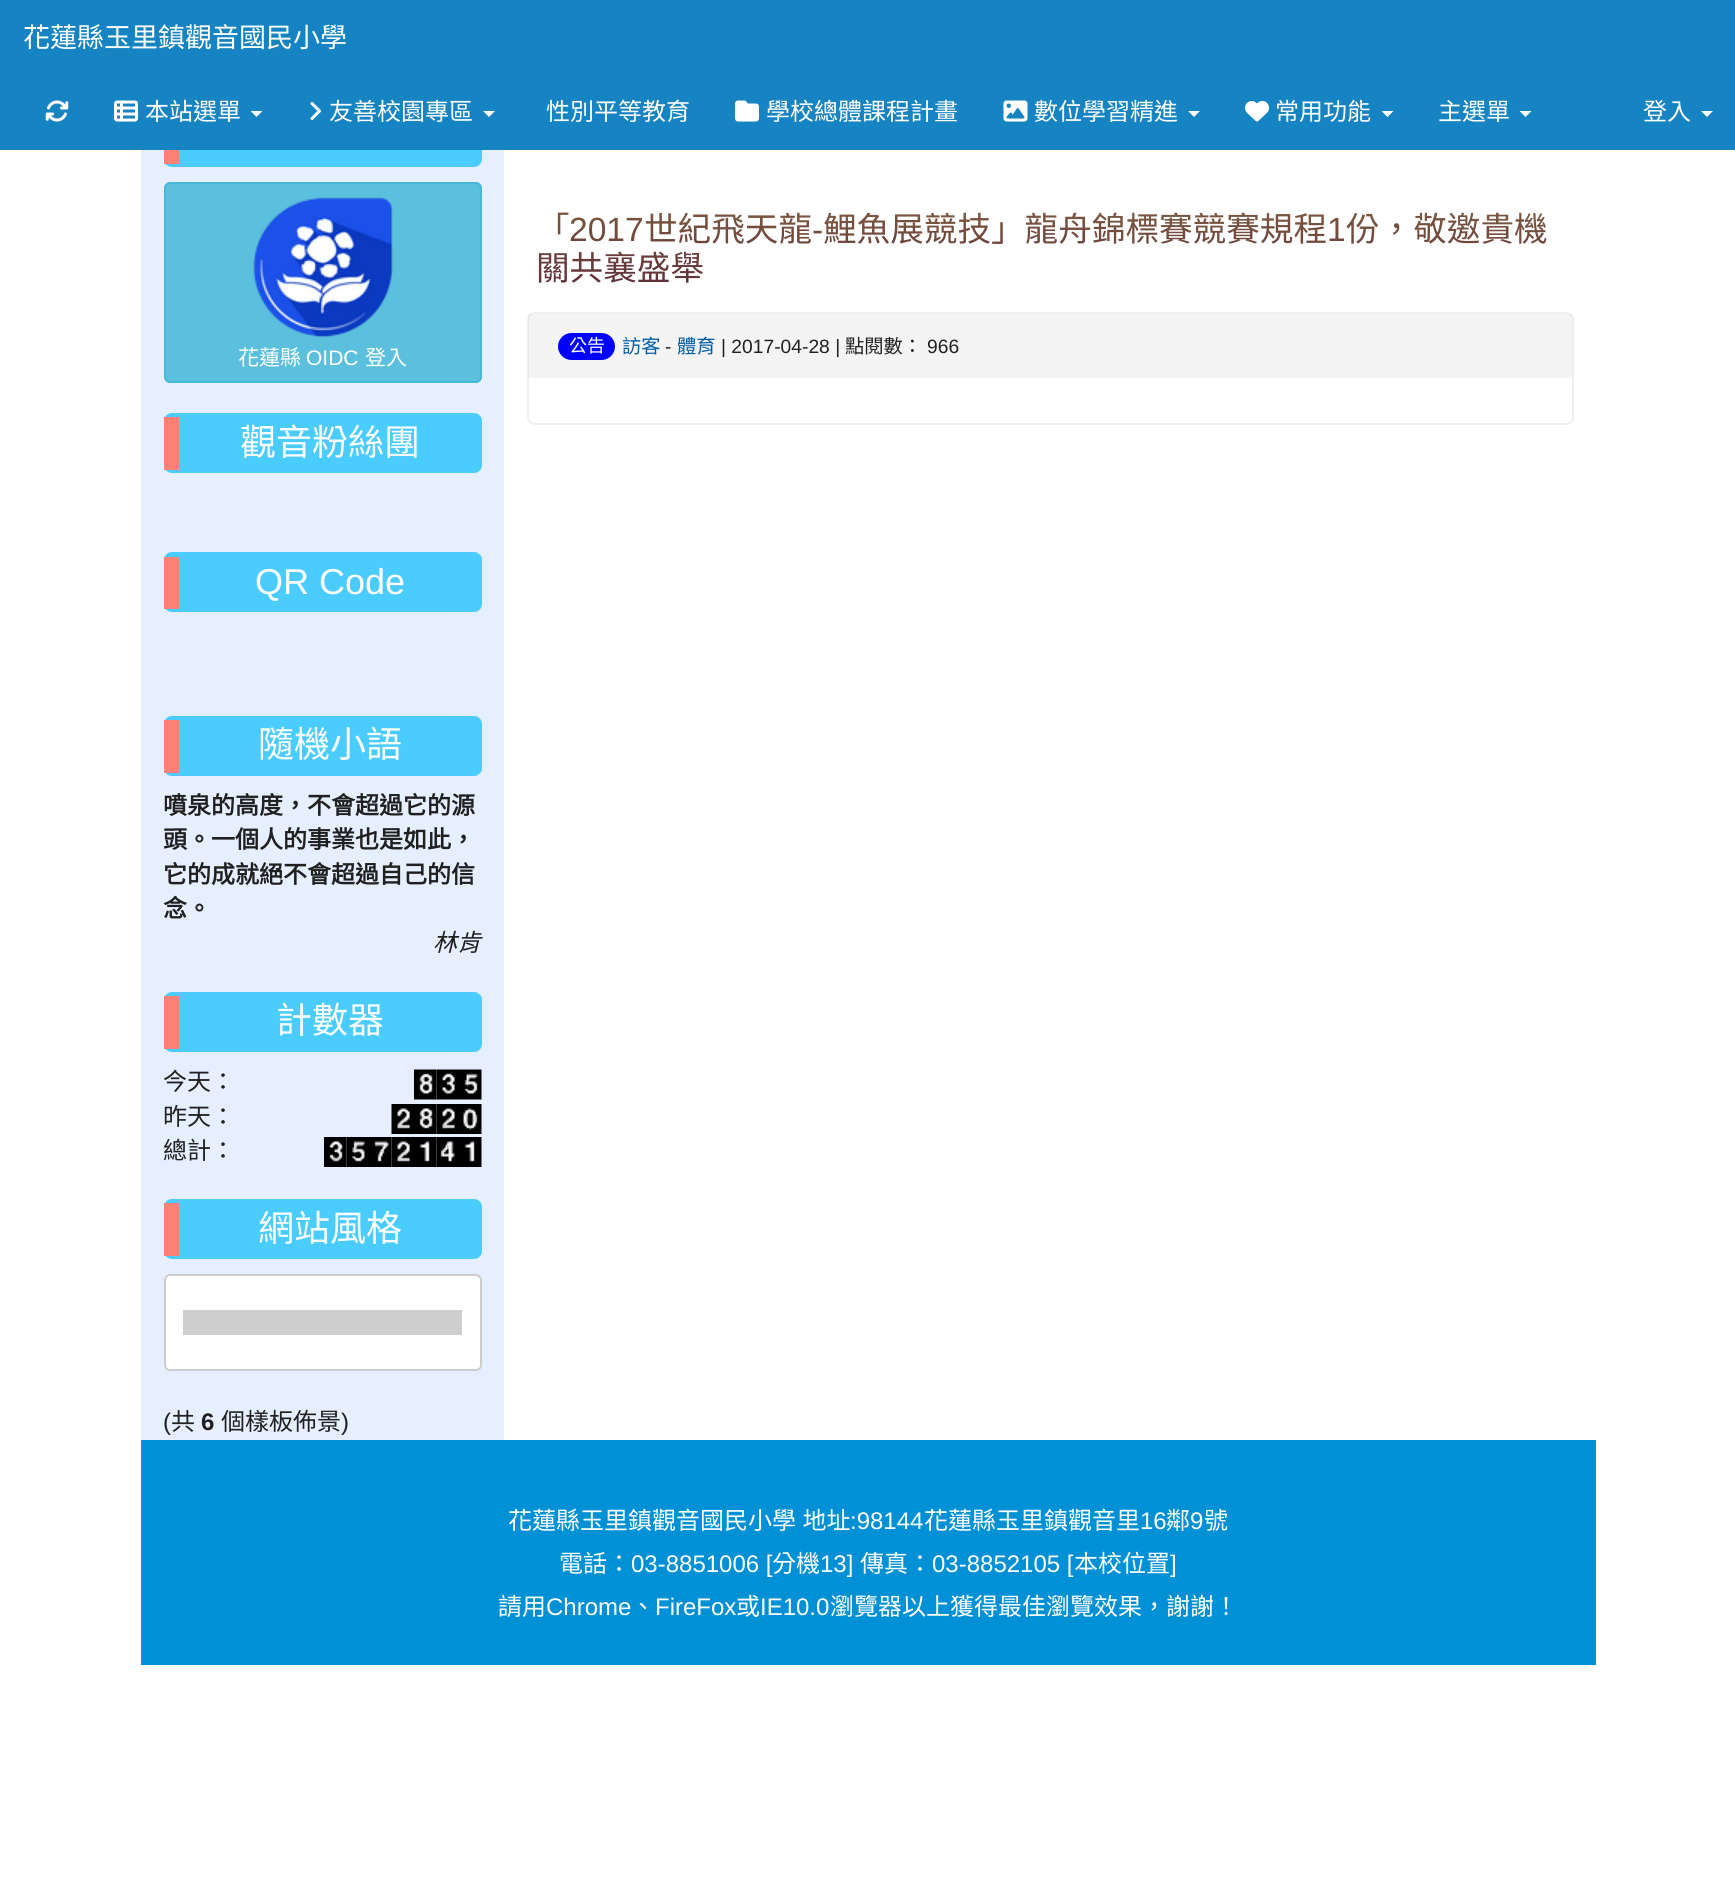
import math
import cairo


def use_color(cr, r, g, b):
  cr.set_source_rgb(r / 255, g / 255, b / 255)

def text(cr, x, y, s, family, size, color, bold=False, italic=False):
  cr.select_font_face(family, cairo.FONT_SLANT_ITALIC if italic else cairo.FONT_SLANT_NORMAL, cairo.FONT_WEIGHT_BOLD if bold else cairo.FONT_WEIGHT_NORMAL)
  cr.set_font_size(size)
  use_color(cr, *color)
  cr.move_to(x, y)
  cr.show_text(s)

def spaced_text(cr, x, y, s, letter, word):
  cr.move_to(x, y)
  for ch in s:
    cr.show_text(ch)
    cr.rel_move_to(letter + word * (ch == ' '), 0)

def box(cr, x, y, w, h, *color):
  use_color(cr, *color)
  cr.rectangle(x, y, w, h)
  cr.fill()

def round_rect(cr, x, y, w, h, r):
  cr.new_sub_path()
  for i, (u, v) in enumerate([(x + w - r, y + h - r), (x + r, y + h - r), (x + r, y + r), (x + w - r, y + r)]):
    cr.arc(u, v, r, i * math.pi / 2, (i + 1) * math.pi / 2)
  cr.close_path()

def picture(cr, path, x, y, w, h):
  cr.save()
  cr.set_source_surface(cairo.ImageSurface.create_from_png(path), x, y)
  cr.rectangle(x, y, w, h)
  cr.fill()
  cr.restore()

def draw(cr):
  use_color(cr, 255, 255, 255)
  cr.paint()
  box(cr, 141, 150, 363, 1290, 230, 239, 255)
  use_color(cr, 74, 204, 255)
  round_rect(cr, 164, 107, 318, 60, 8)
  cr.fill()
  box(cr, 0, 0, 1735, 150, 22, 132, 194)
  picture(cr, "img_01.png", 45, 100, 24, 22)
  picture(cr, "img_02.png", 114, 100, 24, 22)
  use_color(cr, 255, 255, 255)
  cr.new_path()
  cr.move_to(250.5, 111)
  cr.line_to(262.5, 111)
  cr.line_to(256.5, 117)
  cr.close_path()
  cr.fill()
  picture(cr, "img_03.png", 310, 102, 11, 18)
  cr.new_path()
  cr.move_to(483, 111)
  cr.line_to(495, 111)
  cr.line_to(489, 117)
  cr.close_path()
  cr.fill()
  picture(cr, "img_04.png", 735, 100, 24, 22)
  picture(cr, "img_05.png", 1003, 100, 25, 22)
  cr.new_path()
  cr.move_to(1188, 111)
  cr.line_to(1200, 111)
  cr.line_to(1194, 117)
  cr.close_path()
  cr.fill()
  picture(cr, "img_06.png", 1245, 101, 24, 21)
  cr.new_path()
  cr.move_to(1381.5, 111)
  cr.line_to(1393.5, 111)
  cr.line_to(1387.5, 117)
  cr.close_path()
  cr.fill()
  cr.new_path()
  cr.move_to(1519.5, 111)
  cr.line_to(1531.5, 111)
  cr.line_to(1525.5, 117)
  cr.close_path()
  cr.fill()
  cr.new_path()
  cr.move_to(1701, 111)
  cr.line_to(1713, 111)
  cr.line_to(1707, 117)
  cr.close_path()
  cr.fill()
  round_rect(cr, 528, 313, 1045, 111, 7)
  use_color(cr, 239, 239, 239)
  cr.stroke()
  cr.set_source_rgba(0.784, 0.784, 0.784, 0.2)
  cr.rectangle(528, 314, 1044, 64)
  cr.fill()
  use_color(cr, 0, 0, 255)
  round_rect(cr, 558, 333, 57, 27, 13.5)
  cr.fill()
  box(cr, 164, 150, 15, 14, 255, 129, 118)
  use_color(cr, 91, 192, 222)
  round_rect(cr, 165, 183, 316, 199, 5)
  cr.fill_preserve()
  use_color(cr, 70, 184, 218)
  cr.stroke()
  picture(cr, "img_07.png", 253, 197, 141, 141)
  use_color(cr, 74, 204, 255)
  round_rect(cr, 164, 413, 318, 60, 8)
  cr.fill()
  box(cr, 164, 417, 15, 53, 255, 129, 118)
  use_color(cr, 74, 204, 255)
  round_rect(cr, 164, 552, 318, 60, 8)
  cr.fill()
  box(cr, 164, 557, 15, 52, 255, 129, 118)
  use_color(cr, 74, 204, 255)
  round_rect(cr, 164, 716, 318, 60, 8)
  cr.fill()
  box(cr, 164, 720, 15, 53, 255, 129, 118)
  use_color(cr, 74, 204, 255)
  round_rect(cr, 164, 992, 318, 60, 8)
  cr.fill()
  box(cr, 164, 996, 15, 53, 255, 129, 118)
  picture(cr, "img_08.png", 414, 1069, 23, 31)
  picture(cr, "img_09.png", 436, 1069, 23, 31)
  picture(cr, "img_10.png", 459, 1069, 23, 31)
  picture(cr, "img_11.png", 391, 1104, 23, 30)
  picture(cr, "img_12.png", 414, 1104, 23, 30)
  picture(cr, "img_13.png", 436, 1104, 23, 30)
  picture(cr, "img_14.png", 459, 1104, 23, 30)
  picture(cr, "img_15.png", 324, 1137, 23, 30)
  picture(cr, "img_16.png", 346, 1137, 23, 30)
  picture(cr, "img_17.png", 369, 1137, 23, 30)
  picture(cr, "img_13.png", 391, 1137, 23, 30)
  picture(cr, "img_18.png", 414, 1137, 23, 30)
  picture(cr, "img_19.png", 436, 1137, 23, 30)
  picture(cr, "img_18.png", 459, 1137, 23, 30)
  use_color(cr, 74, 204, 255)
  round_rect(cr, 164, 1199, 318, 60, 8)
  cr.fill()
  box(cr, 164, 1203, 15, 53, 255, 129, 118)
  use_color(cr, 255, 255, 255)
  round_rect(cr, 164, 1274, 318, 97, 6)
  cr.fill()
  use_color(cr, 236, 236, 236)
  cr.new_path()
  cr.move_to(170, 1276)
  cr.line_to(476, 1276)
  cr.curve_to(478, 1276, 480, 1279, 480, 1281)
  cr.curve_to(480, 1278, 478, 1275, 475, 1275)
  cr.line_to(170, 1275)
  cr.curve_to(167, 1275, 165, 1278, 165, 1281)
  cr.curve_to(165, 1279, 167, 1276, 170, 1276)
  cr.close_path()
  cr.fill()
  round_rect(cr, 165, 1275, 316, 95, 5)
  use_color(cr, 204, 204, 204)
  cr.stroke()
  box(cr, 183, 1310, 279, 25, 206, 206, 206)
  box(cr, 141, 1440, 1455, 225, 0, 144, 214)
  text(cr, 23, 47, "花蓮縣玉里鎮觀音國民小學", "Noto Sans CJK TC", 27, (255, 255, 255))
  text(cr, 145, 120, "本站選單", "Noto Sans CJK TC", 24, (255, 255, 255))
  text(cr, 329, 120, "友善校園專區", "Noto Sans CJK TC", 24, (255, 255, 255))
  text(cr, 546, 120, "性別平等教育", "Noto Sans CJK TC", 24, (255, 255, 255))
  text(cr, 766, 120, "學校總體課程計畫", "Noto Sans CJK TC", 24, (255, 255, 255))
  text(cr, 1034, 120, "數位學習精進", "Noto Sans CJK TC", 24, (255, 255, 255))
  text(cr, 1275, 120, "常用功能", "Noto Sans CJK TC", 24, (255, 255, 255))
  text(cr, 1438, 120, "主選單", "Noto Sans CJK TC", 24, (255, 255, 255))
  text(cr, 1643, 120, "登入", "Noto Sans CJK TC", 24, (255, 255, 255))
  cr.set_font_size(33.6)
  gradient = cairo.LinearGradient(1050, 202, 1050, 297)
  gradient.add_color_stop_rgba(0, 0.494, 0.361, 0.251, 1)
  gradient.add_color_stop_rgba(1, 0.361, 0.161, 0.22, 1)
  cr.set_source(gradient)
  cr.move_to(536, 241)
  cr.show_text("「")
  cr.select_font_face("Liberation Sans")
  cr.move_to(569, 241)
  cr.show_text("2017")
  cr.select_font_face("Noto Sans CJK TC")
  cr.move_to(644, 241)
  cr.show_text("世紀飛天龍")
  cr.select_font_face("Liberation Sans")
  cr.move_to(812, 241)
  cr.show_text("-")
  cr.select_font_face("Noto Sans CJK TC")
  cr.move_to(823, 241)
  cr.show_text("鯉魚展競技」龍舟錦標賽競賽規程")
  cr.select_font_face("Liberation Sans")
  cr.move_to(1327, 241)
  cr.show_text("1")
  cr.select_font_face("Noto Sans CJK TC")
  cr.move_to(1346, 241)
  cr.show_text("份，敬邀貴機")
  cr.move_to(536, 280)
  cr.show_text("關共襄盛舉")
  text(cr, 569, 352, "公告", "Noto Sans CJK TC", 18, (255, 255, 255))
  text(cr, 622, 353, "訪客", "Noto Sans CJK TC", 19.25, (0, 92, 168))
  text(cr, 665, 353, "-", "Liberation Sans", 19.25, (32, 32, 32))
  text(cr, 677, 353, "體育", "Noto Sans CJK TC", 19.25, (0, 92, 168))
  text(cr, 721, 353, "| 2017-04-28 |", "Liberation Sans", 19.25, (32, 32, 32))
  text(cr, 845, 353, "點閱數：", "Noto Sans CJK TC", 19.25, (32, 32, 32))
  text(cr, 927, 353, "966", "Liberation Sans", 19.25, (32, 32, 32))
  text(cr, 238, 365, "花蓮縣", "Noto Sans CJK TC", 21, (255, 255, 255))
  text(cr, 306, 365, "OIDC", "Liberation Sans", 21, (255, 255, 255))
  text(cr, 365, 365, "登入", "Noto Sans CJK TC", 21, (255, 255, 255))
  text(cr, 240, 455, "觀音粉絲團", "Noto Sans CJK TC", 36, (255, 255, 255))
  text(cr, 255, 594, "QR Code", "Liberation Sans", 36, (255, 255, 255))
  text(cr, 258, 757, "隨機小語", "Noto Sans CJK TC", 36, (255, 255, 255))
  text(cr, 163, 814, "噴泉的高度，不會超過它的源", "Noto Sans CJK TC", 24, (32, 32, 32), bold=True)
  text(cr, 163, 848, "頭。一個人的事業也是如此，", "Noto Sans CJK TC", 24, (32, 32, 32), bold=True)
  text(cr, 163, 883, "它的成就絕不會超過自己的信", "Noto Sans CJK TC", 24, (32, 32, 32), bold=True)
  text(cr, 163, 917, "念。", "Noto Sans CJK TC", 24, (32, 32, 32), bold=True)
  text(cr, 433, 951, "林肯", "Noto Sans CJK TC", 24, (32, 32, 32), italic=True)
  text(cr, 276, 1033, "計數器", "Noto Sans CJK TC", 36, (255, 255, 255))
  text(cr, 163, 1090, "今天：", "Noto Sans CJK TC", 24, (32, 32, 32))
  text(cr, 163, 1125, "昨天：", "Noto Sans CJK TC", 24, (32, 32, 32))
  text(cr, 163, 1159, "總計：", "Noto Sans CJK TC", 24, (32, 32, 32))
  text(cr, 258, 1241, "網站風格", "Noto Sans CJK TC", 36, (255, 255, 255))
  text(cr, 163, 1430, "(", "Liberation Sans", 24, (32, 32, 32))
  text(cr, 171, 1430, "共", "Noto Sans CJK TC", 24, (32, 32, 32))
  text(cr, 201, 1430, "6", "Liberation Sans", 24, (32, 32, 32), bold=True)
  text(cr, 221, 1430, "個樣板佈景", "Noto Sans CJK TC", 24, (32, 32, 32))
  text(cr, 341, 1430, ")", "Liberation Sans", 24, (32, 32, 32))
  cr.select_font_face("Noto Sans CJK TC")
  use_color(cr, 255, 255, 255)
  spaced_text(cr, 508, 1529, "花蓮縣玉里鎮觀音國民小學 地址", 0, 1)
  text(cr, 850, 1529, ":98144", "Liberation Sans", 24, (255, 255, 255))
  text(cr, 924, 1529, "花蓮縣玉里鎮觀音里", "Noto Sans CJK TC", 24, (255, 255, 255))
  text(cr, 1140, 1529, "16", "Liberation Sans", 24, (255, 255, 255))
  text(cr, 1166, 1529, "鄰", "Noto Sans CJK TC", 24, (255, 255, 255))
  text(cr, 1190, 1529, "9", "Liberation Sans", 24, (255, 255, 255))
  text(cr, 1204, 1529, "號", "Noto Sans CJK TC", 24, (255, 255, 255))
  text(cr, 559, 1572, "電話：", "Noto Sans CJK TC", 24, (255, 255, 255))
  text(cr, 631, 1572, "03-8851006 [", "Liberation Sans", 24, (255, 255, 255))
  text(cr, 772, 1572, "分機", "Noto Sans CJK TC", 24, (255, 255, 255))
  text(cr, 820, 1572, "13]", "Liberation Sans", 24, (255, 255, 255))
  text(cr, 860, 1572, "傳真：", "Noto Sans CJK TC", 24, (255, 255, 255))
  text(cr, 932, 1572, "03-8852105 [", "Liberation Sans", 24, (255, 255, 255))
  text(cr, 1074, 1572, "本校位置", "Noto Sans CJK TC", 24, (255, 255, 255))
  text(cr, 1170, 1572, "]", "Liberation Sans", 24, (255, 255, 255))
  text(cr, 498, 1615, "請用", "Noto Sans CJK TC", 24, (255, 255, 255))
  text(cr, 546, 1615, "Chrome", "Liberation Sans", 24, (255, 255, 255))
  text(cr, 631, 1615, "、", "Noto Sans CJK TC", 24, (255, 255, 255))
  text(cr, 655, 1615, "FireFox", "Liberation Sans", 24, (255, 255, 255))
  text(cr, 736, 1615, "或", "Noto Sans CJK TC", 24, (255, 255, 255))
  text(cr, 760, 1615, "IE10.0", "Liberation Sans", 24, (255, 255, 255))
  text(cr, 830, 1615, "瀏覽器以上獲得最佳瀏覽效果，謝謝！", "Noto Sans CJK TC", 24, (255, 255, 255))


surface = cairo.ImageSurface(cairo.FORMAT_RGB24, 1735, 1895)
cr = cairo.Context(surface)
options = cairo.FontOptions()
options.set_hint_metrics(cairo.HINT_METRICS_OFF)
options.set_hint_style(cairo.HINT_STYLE_NONE)
cr.set_font_options(options)
cr.set_miter_limit(4)
draw(cr)
surface.write_to_png("out.png")
